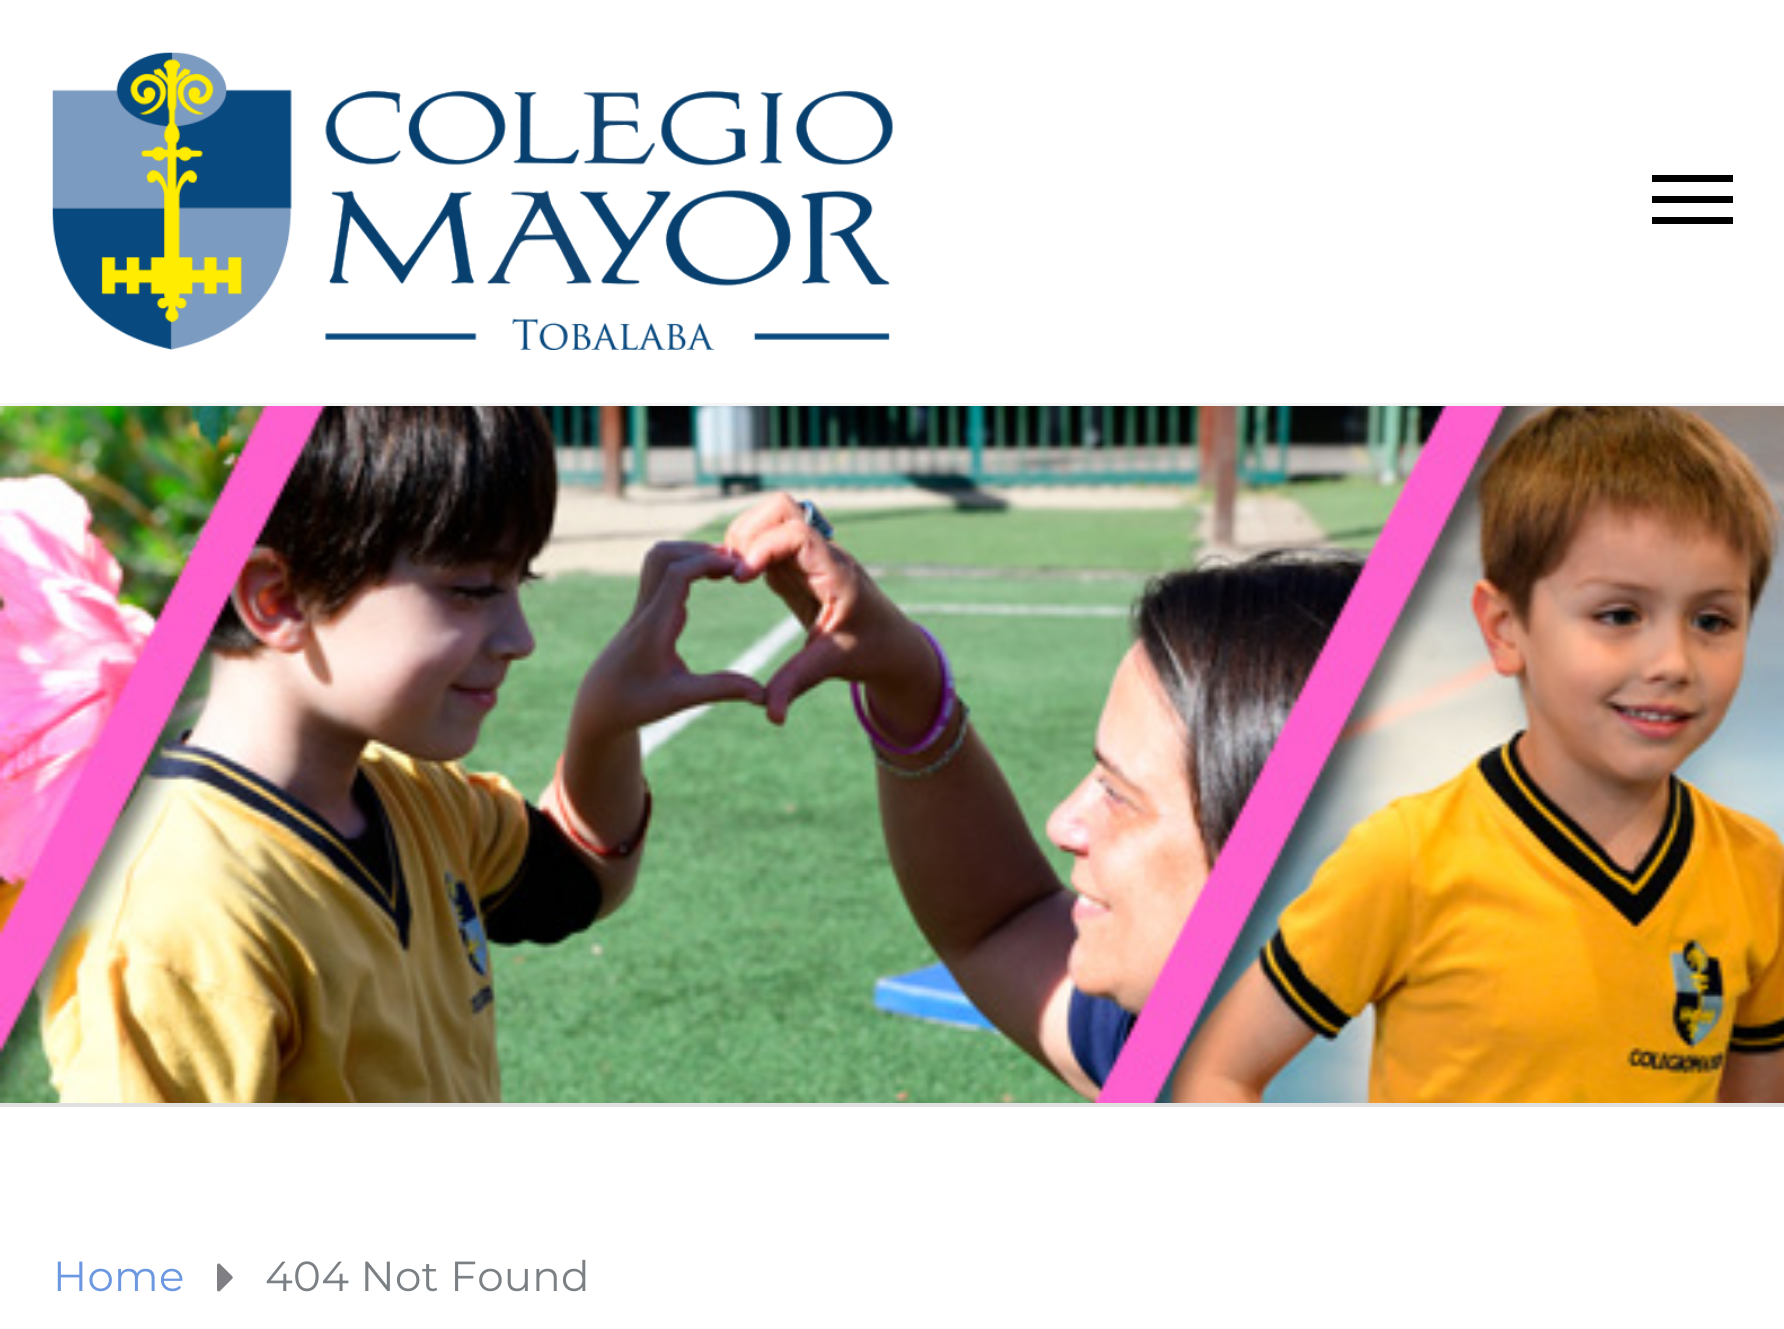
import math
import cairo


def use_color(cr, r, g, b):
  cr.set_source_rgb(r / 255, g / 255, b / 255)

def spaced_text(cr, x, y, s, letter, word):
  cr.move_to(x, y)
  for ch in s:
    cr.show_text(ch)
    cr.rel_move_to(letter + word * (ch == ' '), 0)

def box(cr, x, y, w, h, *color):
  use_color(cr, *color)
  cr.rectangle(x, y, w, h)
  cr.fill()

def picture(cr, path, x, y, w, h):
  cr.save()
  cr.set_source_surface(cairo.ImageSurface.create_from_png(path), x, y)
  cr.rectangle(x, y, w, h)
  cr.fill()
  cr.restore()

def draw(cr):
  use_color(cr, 255, 255, 255)
  cr.paint()
  box(cr, 0, 403, 1784, 3, 245, 245, 245)
  picture(cr, "img_01.png", 52, 52, 841, 298)
  box(cr, 1652, 175, 81, 7, 0, 0, 0)
  box(cr, 1652, 196, 81, 7, 0, 0, 0)
  box(cr, 1652, 217, 81, 7, 0, 0, 0)
  picture(cr, "img_02.png", 0, 406, 1784, 697)
  box(cr, 0, 1103, 1784, 4, 225, 225, 225)
  picture(cr, "img_03.png", 217, 1263, 16, 29)
  cr.select_font_face("Montserrat")
  cr.set_font_size(42)
  use_color(cr, 108, 152, 225)
  spaced_text(cr, 53, 1291, "Home", 0.3, 0)
  use_color(cr, 123, 128, 133)
  spaced_text(cr, 265, 1291, "404 Not Found", 0.3, 0)


surface = cairo.ImageSurface(cairo.FORMAT_RGB24, 1784, 1329)
cr = cairo.Context(surface)
options = cairo.FontOptions()
options.set_hint_metrics(cairo.HINT_METRICS_OFF)
options.set_hint_style(cairo.HINT_STYLE_NONE)
cr.set_font_options(options)
cr.set_miter_limit(4)
draw(cr)
surface.write_to_png("out.png")
